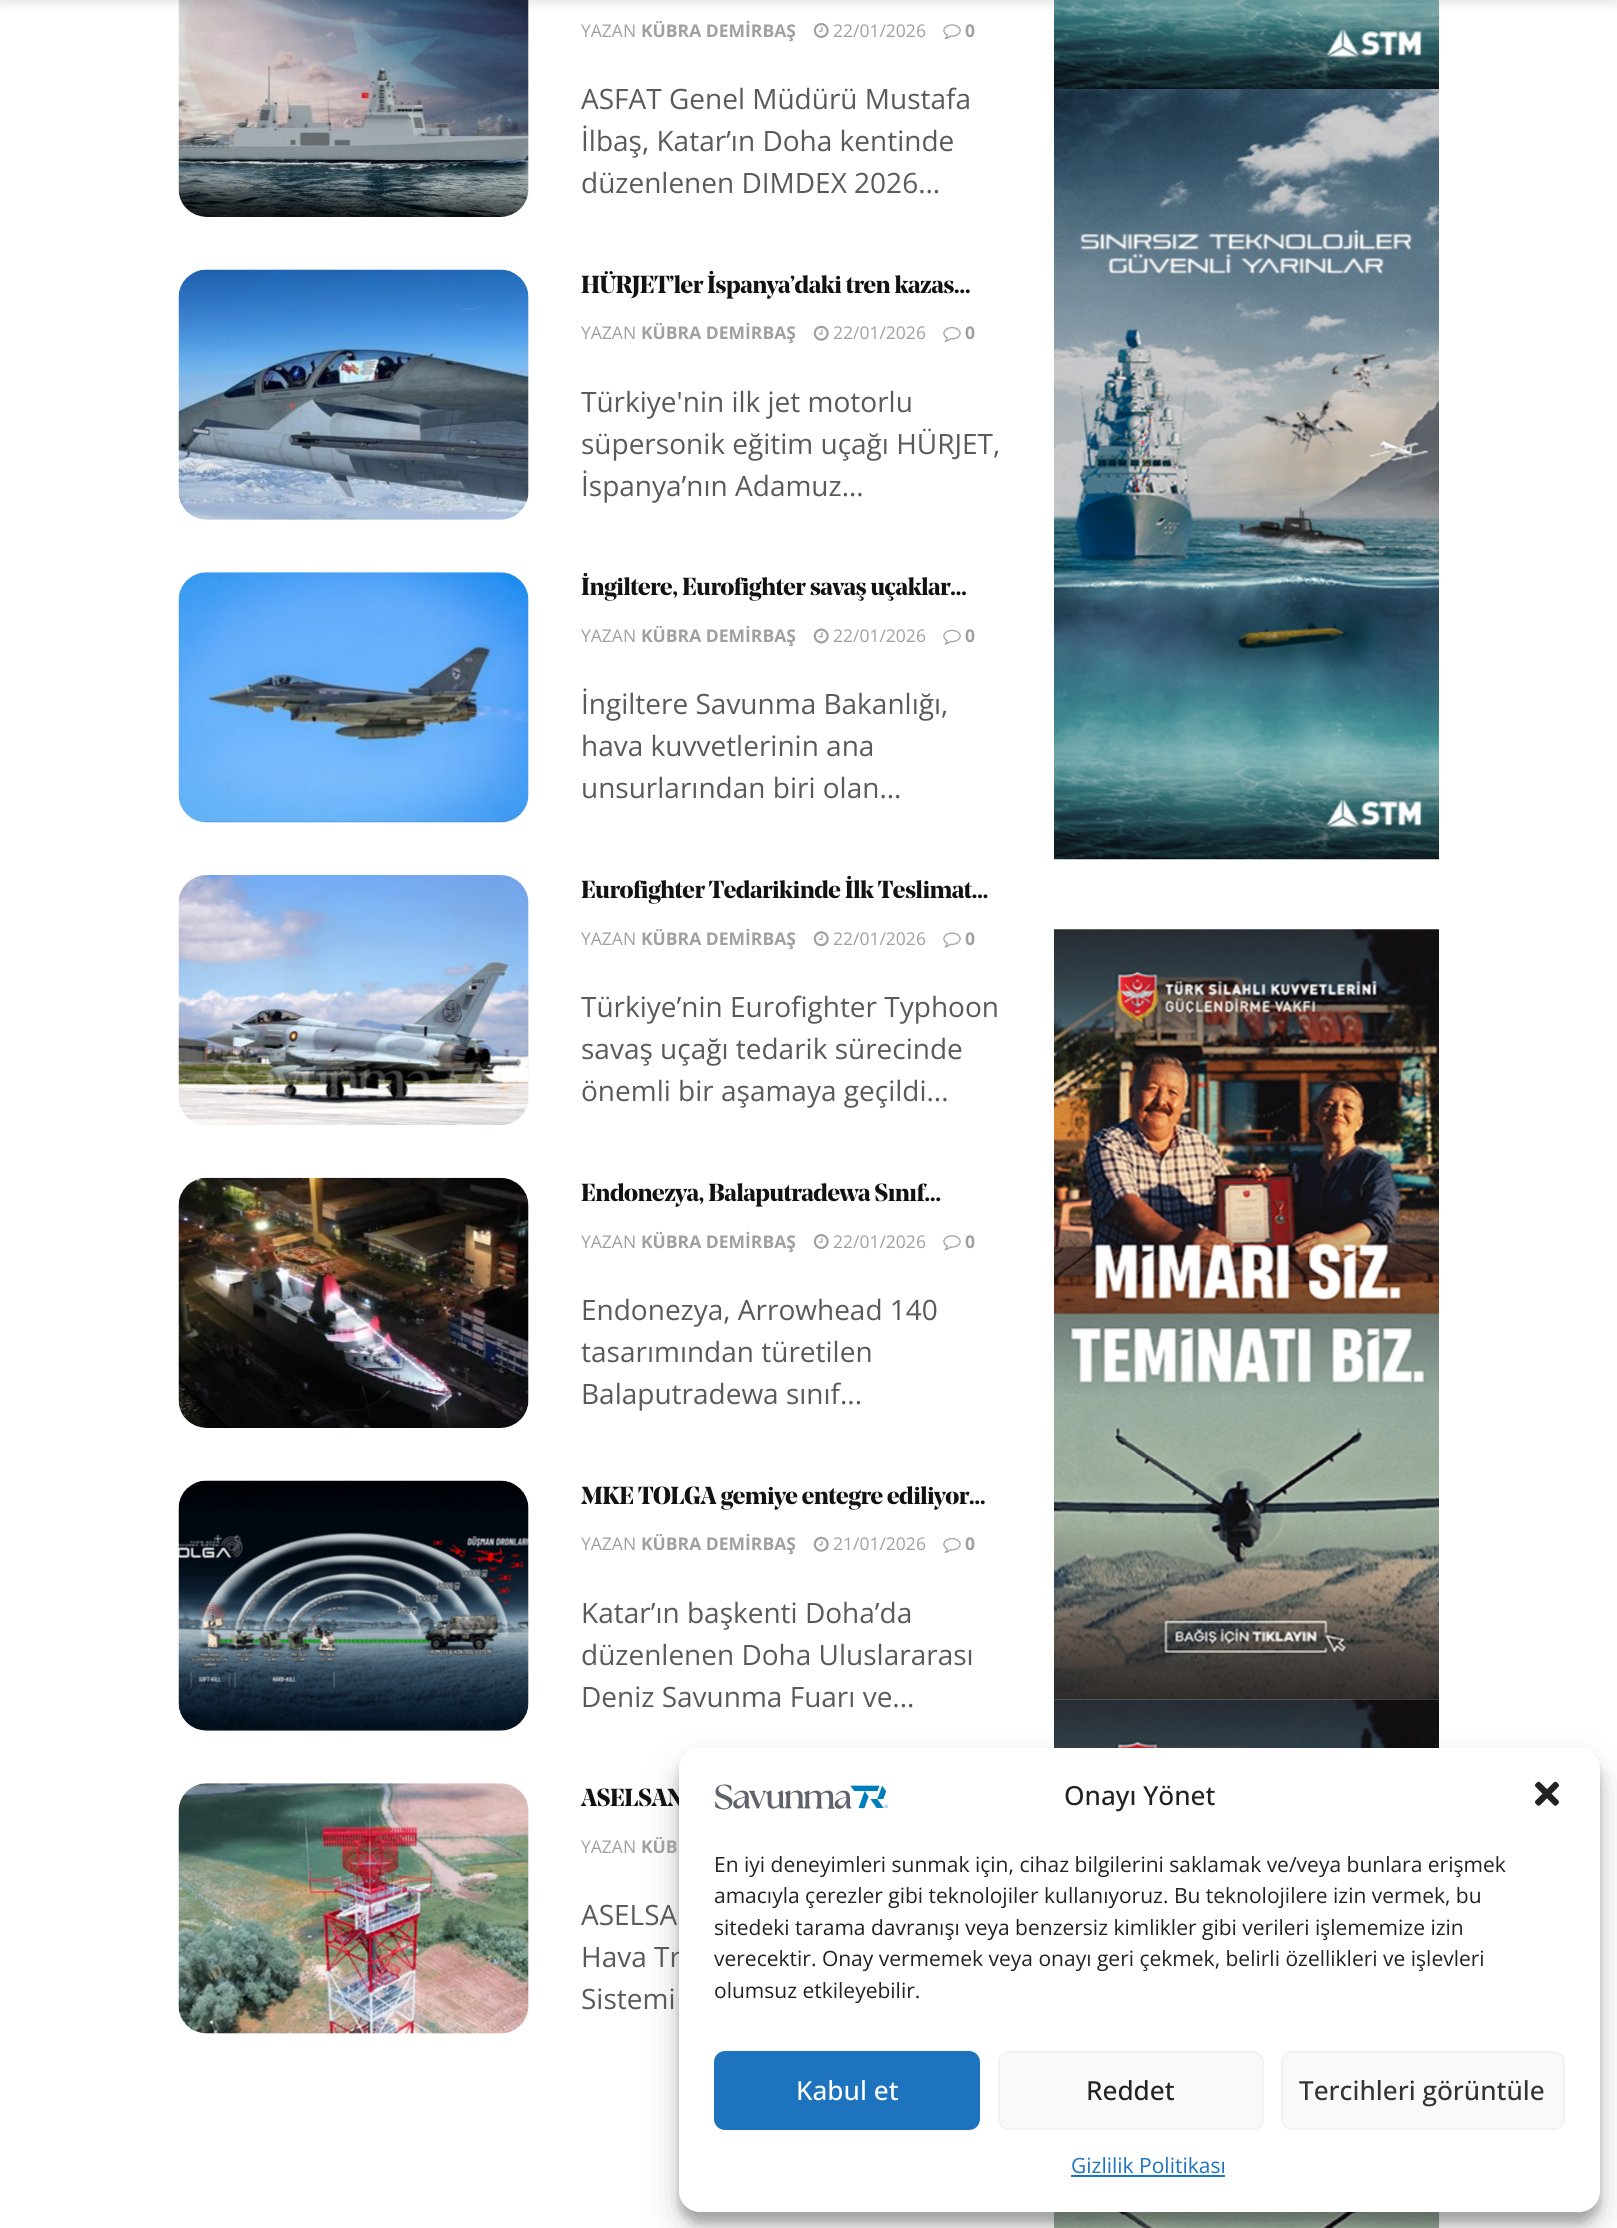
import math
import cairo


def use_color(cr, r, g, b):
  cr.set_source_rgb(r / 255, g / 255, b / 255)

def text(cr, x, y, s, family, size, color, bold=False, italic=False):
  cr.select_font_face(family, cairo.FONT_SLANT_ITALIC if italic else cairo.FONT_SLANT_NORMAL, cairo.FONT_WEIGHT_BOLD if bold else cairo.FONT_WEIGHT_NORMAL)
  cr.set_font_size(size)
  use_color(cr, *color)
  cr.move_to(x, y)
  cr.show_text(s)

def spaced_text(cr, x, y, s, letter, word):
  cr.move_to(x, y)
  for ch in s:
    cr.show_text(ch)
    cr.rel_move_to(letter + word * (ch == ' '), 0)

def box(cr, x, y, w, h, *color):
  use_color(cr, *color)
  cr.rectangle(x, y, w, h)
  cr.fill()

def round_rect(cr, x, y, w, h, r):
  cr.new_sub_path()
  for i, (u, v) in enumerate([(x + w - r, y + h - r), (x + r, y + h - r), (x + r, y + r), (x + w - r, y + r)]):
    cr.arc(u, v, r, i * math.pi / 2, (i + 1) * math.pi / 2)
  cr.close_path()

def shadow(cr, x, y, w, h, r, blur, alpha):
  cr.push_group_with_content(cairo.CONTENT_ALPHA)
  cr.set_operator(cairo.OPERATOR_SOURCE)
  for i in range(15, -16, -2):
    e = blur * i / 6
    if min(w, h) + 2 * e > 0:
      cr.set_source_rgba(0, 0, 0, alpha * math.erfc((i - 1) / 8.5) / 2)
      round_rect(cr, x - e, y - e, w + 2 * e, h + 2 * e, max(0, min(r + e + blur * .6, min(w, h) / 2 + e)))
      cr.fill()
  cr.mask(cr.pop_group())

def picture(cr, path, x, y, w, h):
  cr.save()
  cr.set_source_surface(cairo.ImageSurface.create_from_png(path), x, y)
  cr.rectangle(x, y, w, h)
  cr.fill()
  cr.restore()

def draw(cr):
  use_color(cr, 255, 255, 255)
  cr.paint()
  use_color(cr, 247, 247, 247)
  round_rect(cr, 179, -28, 350, 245, 28)
  cr.fill()
  picture(cr, "img_01.png", 178, 0, 351, 217)
  picture(cr, "img_20.png", 1054, 0, 385, 89)
  use_color(cr, 0, 0, 0)
  shadow(cr, 0, -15, 1617, 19, 0, 5, 0.1)
  picture(cr, "img_02.png", 813, 23, 16, 15)
  picture(cr, "img_03.png", 943, 24, 18, 16)
  use_color(cr, 247, 247, 247)
  round_rect(cr, 179, 270, 350, 250, 28)
  cr.fill()
  picture(cr, "img_05.png", 179, 269, 157, 251)
  picture(cr, "img_04.png", 178, 269, 351, 251)
  picture(cr, "img_06.png", 813, 325, 16, 16)
  picture(cr, "img_07.png", 943, 327, 18, 15)
  round_rect(cr, 179, 572, 350, 251, 28)
  cr.fill()
  picture(cr, "img_09.png", 266, 572, 70, 1)
  picture(cr, "img_08.png", 178, 572, 351, 251)
  picture(cr, "img_10.png", 813, 628, 16, 16)
  picture(cr, "img_11.png", 943, 629, 18, 16)
  round_rect(cr, 179, 875, 350, 250, 28)
  cr.fill()
  picture(cr, "img_13.png", 179, 875, 27, 250)
  picture(cr, "img_12.png", 178, 875, 351, 250)
  picture(cr, "img_14.png", 813, 931, 16, 16)
  picture(cr, "img_15.png", 943, 932, 18, 16)
  round_rect(cr, 179, 1178, 350, 250, 28)
  cr.fill()
  picture(cr, "img_17.png", 179, 1178, 27, 250)
  picture(cr, "img_16.png", 178, 1177, 351, 251)
  picture(cr, "img_02.png", 813, 1234, 16, 15)
  picture(cr, "img_03.png", 943, 1235, 18, 16)
  round_rect(cr, 179, 1481, 350, 250, 28)
  cr.fill()
  picture(cr, "img_05.png", 179, 1480, 157, 251)
  picture(cr, "img_18.png", 178, 1480, 351, 251)
  picture(cr, "img_06.png", 813, 1536, 16, 16)
  picture(cr, "img_07.png", 943, 1538, 18, 15)
  round_rect(cr, 179, 1783, 350, 251, 28)
  cr.fill()
  picture(cr, "img_09.png", 266, 1783, 70, 1)
  picture(cr, "img_19.png", 178, 1783, 351, 251)
  picture(cr, "img_21.png", 1054, 89, 385, 771)
  picture(cr, "img_22.png", 1054, 929, 385, 771)
  picture(cr, "img_23.png", 1054, 1699, 385, 529)
  use_color(cr, 0, 0, 0)
  shadow(cr, 679, 1759, 921, 464, 21, 5, 0.23)
  shadow(cr, 679, 1766, 921, 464, 21, 17.5, 0.19)
  text(cr, 581, 37, "YAZAN", "Open Sans", 17.5, (160, 160, 160))
  text(cr, 641, 37, "KÜBRA DEMİRBAŞ", "Open Sans", 17.5, (160, 160, 160), bold=True)
  text(cr, 833, 37, "22/01/2026", "Open Sans", 17.5, (160, 160, 160))
  text(cr, 965, 37, "0", "Open Sans", 17.5, (160, 160, 160), bold=True)
  text(cr, 581, 109, "ASFAT Genel Müdürü Mustafa", "Open Sans", 28, (90, 90, 90))
  text(cr, 581, 151, "İlbaş, Katar’ın Doha kentinde", "Open Sans", 28, (90, 90, 90))
  text(cr, 581, 193, "düzenlenen DIMDEX 2026...", "Open Sans", 28, (90, 90, 90))
  cr.select_font_face("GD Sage", cairo.FONT_SLANT_NORMAL, cairo.FONT_WEIGHT_BOLD)
  cr.set_font_size(24.5)
  use_color(cr, 18, 18, 18)
  spaced_text(cr, 581, 293, "HÜRJET’ler İspanya’daki tren kazas...", -0.5, 0)
  text(cr, 581, 339, "YAZAN", "Open Sans", 17.5, (160, 160, 160))
  text(cr, 641, 339, "KÜBRA DEMİRBAŞ", "Open Sans", 17.5, (160, 160, 160), bold=True)
  text(cr, 833, 339, "22/01/2026", "Open Sans", 17.5, (160, 160, 160))
  text(cr, 965, 339, "0", "Open Sans", 17.5, (160, 160, 160), bold=True)
  text(cr, 581, 412, "Türkiye'nin ilk jet motorlu", "Open Sans", 28, (90, 90, 90))
  text(cr, 581, 454, "süpersonik eğitim uçağı HÜRJET,", "Open Sans", 28, (90, 90, 90))
  text(cr, 581, 496, "İspanya’nın Adamuz...", "Open Sans", 28, (90, 90, 90))
  cr.select_font_face("GD Sage", cairo.FONT_SLANT_NORMAL, cairo.FONT_WEIGHT_BOLD)
  cr.set_font_size(24.5)
  use_color(cr, 18, 18, 18)
  spaced_text(cr, 581, 595, "İngiltere, Eurofighter savaş uçaklar...", -0.5, 0)
  text(cr, 581, 642, "YAZAN", "Open Sans", 17.5, (160, 160, 160))
  text(cr, 641, 642, "KÜBRA DEMİRBAŞ", "Open Sans", 17.5, (160, 160, 160), bold=True)
  text(cr, 833, 642, "22/01/2026", "Open Sans", 17.5, (160, 160, 160))
  text(cr, 965, 642, "0", "Open Sans", 17.5, (160, 160, 160), bold=True)
  text(cr, 581, 714, "İngiltere Savunma Bakanlığı,", "Open Sans", 28, (90, 90, 90))
  text(cr, 581, 756, "hava kuvvetlerinin ana", "Open Sans", 28, (90, 90, 90))
  text(cr, 581, 798, "unsurlarından biri olan...", "Open Sans", 28, (90, 90, 90))
  cr.select_font_face("GD Sage", cairo.FONT_SLANT_NORMAL, cairo.FONT_WEIGHT_BOLD)
  cr.set_font_size(24.5)
  use_color(cr, 18, 18, 18)
  spaced_text(cr, 581, 898, "Eurofighter Tedarikinde İlk Teslimat...", -0.5, 0)
  text(cr, 581, 945, "YAZAN", "Open Sans", 17.5, (160, 160, 160))
  text(cr, 641, 945, "KÜBRA DEMİRBAŞ", "Open Sans", 17.5, (160, 160, 160), bold=True)
  text(cr, 833, 945, "22/01/2026", "Open Sans", 17.5, (160, 160, 160))
  text(cr, 965, 945, "0", "Open Sans", 17.5, (160, 160, 160), bold=True)
  text(cr, 581, 1017, "Türkiye’nin Eurofighter Typhoon", "Open Sans", 28, (90, 90, 90))
  text(cr, 581, 1059, "savaş uçağı tedarik sürecinde", "Open Sans", 28, (90, 90, 90))
  text(cr, 581, 1101, "önemli bir aşamaya geçildi...", "Open Sans", 28, (90, 90, 90))
  cr.select_font_face("GD Sage", cairo.FONT_SLANT_NORMAL, cairo.FONT_WEIGHT_BOLD)
  cr.set_font_size(24.5)
  use_color(cr, 18, 18, 18)
  spaced_text(cr, 581, 1201, "Endonezya, Balaputradewa Sınıf...", -0.5, 0)
  text(cr, 581, 1248, "YAZAN", "Open Sans", 17.5, (160, 160, 160))
  text(cr, 641, 1248, "KÜBRA DEMİRBAŞ", "Open Sans", 17.5, (160, 160, 160), bold=True)
  text(cr, 833, 1248, "22/01/2026", "Open Sans", 17.5, (160, 160, 160))
  text(cr, 965, 1248, "0", "Open Sans", 17.5, (160, 160, 160), bold=True)
  text(cr, 581, 1320, "Endonezya, Arrowhead 140", "Open Sans", 28, (90, 90, 90))
  text(cr, 581, 1362, "tasarımından türetilen", "Open Sans", 28, (90, 90, 90))
  text(cr, 581, 1404, "Balaputradewa sınıf...", "Open Sans", 28, (90, 90, 90))
  cr.select_font_face("GD Sage", cairo.FONT_SLANT_NORMAL, cairo.FONT_WEIGHT_BOLD)
  cr.set_font_size(24.5)
  use_color(cr, 18, 18, 18)
  spaced_text(cr, 581, 1504, "MKE TOLGA gemiye entegre ediliyor...", -0.5, 0)
  text(cr, 581, 1550, "YAZAN", "Open Sans", 17.5, (160, 160, 160))
  text(cr, 641, 1550, "KÜBRA DEMİRBAŞ", "Open Sans", 17.5, (160, 160, 160), bold=True)
  text(cr, 833, 1550, "21/01/2026", "Open Sans", 17.5, (160, 160, 160))
  text(cr, 965, 1550, "0", "Open Sans", 17.5, (160, 160, 160), bold=True)
  text(cr, 581, 1623, "Katar’ın başkenti Doha’da", "Open Sans", 28, (90, 90, 90))
  text(cr, 581, 1665, "düzenlenen Doha Uluslararası", "Open Sans", 28, (90, 90, 90))
  text(cr, 581, 1707, "Deniz Savunma Fuarı ve...", "Open Sans", 28, (90, 90, 90))
  cr.select_font_face("GD Sage", cairo.FONT_SLANT_NORMAL, cairo.FONT_WEIGHT_BOLD)
  cr.set_font_size(24.5)
  use_color(cr, 18, 18, 18)
  spaced_text(cr, 581, 1806, "ASELSAN", -0.5, 0)
  text(cr, 581, 1853, "YAZAN", "Open Sans", 17.5, (160, 160, 160))
  text(cr, 641, 1853, "KÜB", "Open Sans", 17.5, (160, 160, 160), bold=True)
  text(cr, 581, 1925, "ASELSA", "Open Sans", 28, (90, 90, 90))
  text(cr, 581, 1967, "Hava Tr", "Open Sans", 28, (90, 90, 90))
  text(cr, 581, 2009, "Sistemi", "Open Sans", 28, (90, 90, 90))
  use_color(cr, 255, 255, 255)
  round_rect(cr, 679, 1748, 921, 464, 21)
  cr.fill()
  picture(cr, "img_24.png", 715, 1784, 173, 26)
  text(cr, 1064, 1805, "Onayı Yönet", "Open Sans Medium", 26.25, (34, 34, 34))
  picture(cr, "img_25.png", 1535, 1781, 24, 25)
  text(cr, 714, 1872, "En iyi deneyimleri sunmak için, cihaz bilgilerini saklamak ve/veya bunlara erişmek", "Open Sans", 21, (34, 34, 34))
  text(cr, 714, 1903, "amacıyla çerezler gibi teknolojiler kullanıyoruz. Bu teknolojilere izin vermek, bu", "Open Sans", 21, (34, 34, 34))
  text(cr, 714, 1935, "sitedeki tarama davranışı veya benzersiz kimlikler gibi verileri işlememize izin", "Open Sans", 21, (34, 34, 34))
  text(cr, 714, 1966, "verecektir. Onay vermemek veya onayı geri çekmek, belirli özellikleri ve işlevleri", "Open Sans", 21, (34, 34, 34))
  text(cr, 714, 1998, "olumsuz etkileyebilir.", "Open Sans", 21, (34, 34, 34))
  use_color(cr, 30, 115, 190)
  round_rect(cr, 715, 2052, 264, 77, 10)
  cr.fill_preserve()
  cr.stroke()
  text(cr, 796, 2100, "Kabul et", "Open Sans Medium", 26.25, (255, 255, 255))
  use_color(cr, 249, 249, 249)
  round_rect(cr, 999, 2052, 264, 77, 10)
  cr.fill_preserve()
  use_color(cr, 242, 242, 242)
  cr.stroke()
  text(cr, 1086, 2100, "Reddet", "Open Sans Medium", 26.25, (34, 34, 34))
  use_color(cr, 249, 249, 249)
  round_rect(cr, 1282, 2052, 282, 77, 10)
  cr.fill_preserve()
  use_color(cr, 242, 242, 242)
  cr.stroke()
  text(cr, 1299, 2100, "Tercihleri görüntüle", "Open Sans Medium", 26.25, (51, 51, 51))
  text(cr, 1071, 2173, "Gizlilik Politikası", "Open Sans", 21, (30, 115, 190))
  box(cr, 1071, 2175, 154, 2, 30, 115, 190)


surface = cairo.ImageSurface(cairo.FORMAT_RGB24, 1617, 2228)
cr = cairo.Context(surface)
options = cairo.FontOptions()
options.set_hint_metrics(cairo.HINT_METRICS_OFF)
options.set_hint_style(cairo.HINT_STYLE_NONE)
cr.set_font_options(options)
cr.set_miter_limit(4)
draw(cr)
surface.write_to_png("out.png")
